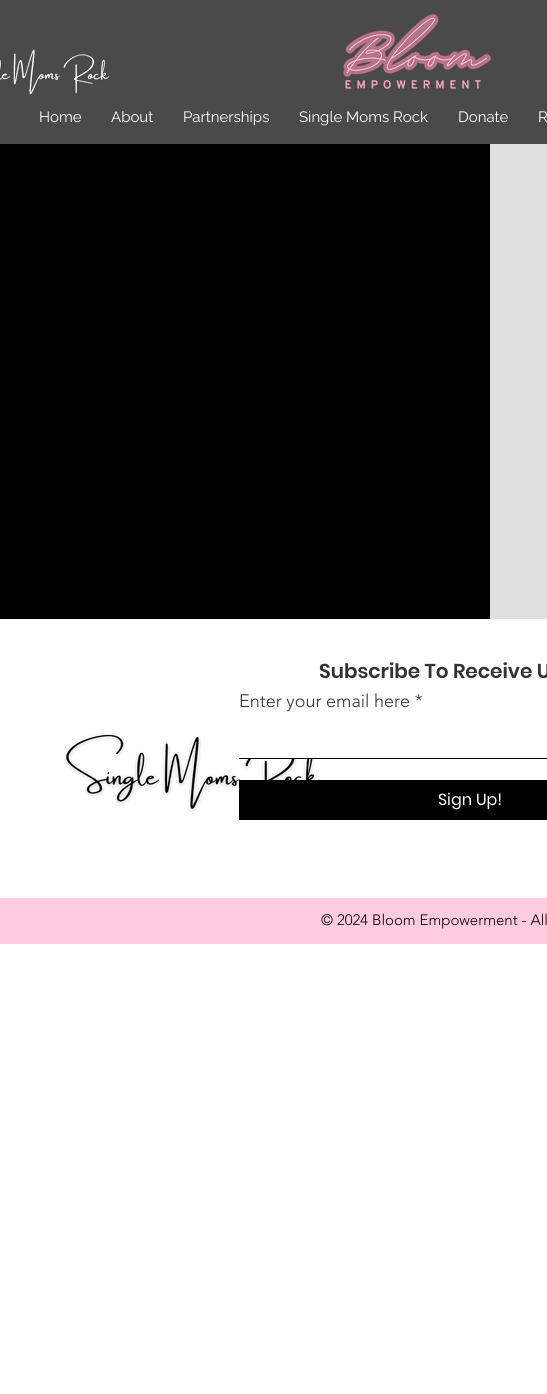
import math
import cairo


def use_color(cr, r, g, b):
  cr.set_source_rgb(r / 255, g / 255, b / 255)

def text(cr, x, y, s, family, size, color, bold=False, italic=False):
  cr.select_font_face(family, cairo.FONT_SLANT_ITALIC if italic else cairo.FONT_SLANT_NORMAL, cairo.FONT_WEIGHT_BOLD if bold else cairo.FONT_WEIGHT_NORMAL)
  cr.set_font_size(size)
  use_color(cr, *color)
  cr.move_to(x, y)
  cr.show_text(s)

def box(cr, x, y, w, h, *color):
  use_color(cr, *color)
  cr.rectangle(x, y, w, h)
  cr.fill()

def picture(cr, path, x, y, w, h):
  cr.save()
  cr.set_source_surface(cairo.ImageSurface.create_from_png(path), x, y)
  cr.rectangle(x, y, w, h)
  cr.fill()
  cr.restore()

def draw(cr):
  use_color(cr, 255, 255, 255)
  cr.paint()
  box(cr, 0, 0, 547, 144, 74, 74, 74)
  picture(cr, "img_01.png", 0, 49, 110, 46)
  picture(cr, "img_02.png", 343, 14, 148, 75)
  box(cr, 0, 144, 490, 475, 0, 0, 0)
  box(cr, 490, 144, 57, 475, 224, 224, 224)
  picture(cr, "img_03.png", 64, 733, 256, 79)
  box(cr, 246, 742, 69, 16, 255, 255, 255)
  box(cr, 239, 758, 308, 1, 0, 0, 0)
  box(cr, 239, 780, 308, 40, 0, 0, 0)
  box(cr, 0, 898, 547, 46, 255, 204, 223)
  text(cr, 39, 122, "Home", "Raleway", 15, (255, 255, 255))
  text(cr, 111, 122, "About", "Raleway", 15, (255, 255, 255))
  text(cr, 183, 122, "Partnerships", "Raleway", 15, (255, 255, 255))
  text(cr, 299, 122, "Single Moms Rock", "Raleway", 15, (255, 255, 255))
  text(cr, 458, 122, "Donate", "Raleway", 15, (255, 255, 255))
  text(cr, 538, 122, "R", "Raleway", 15, (255, 255, 255))
  text(cr, 319, 678, "Subscribe To Receive U", "Poppins SemiBold", 20, (51, 51, 51))
  text(cr, 239, 707, "Enter your email here *", "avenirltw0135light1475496 Light", 18, (51, 51, 51))
  text(cr, 438, 805, "Sign Up!", "Poppins", 16, (255, 255, 255))
  text(cr, 321, 925, "© 2024 Bloom Empowerment - All", "avenirltw0135light1475496 Light", 15, (0, 0, 0))


surface = cairo.ImageSurface(cairo.FORMAT_RGB24, 547, 1394)
cr = cairo.Context(surface)
options = cairo.FontOptions()
options.set_hint_metrics(cairo.HINT_METRICS_OFF)
options.set_hint_style(cairo.HINT_STYLE_NONE)
cr.set_font_options(options)
cr.set_miter_limit(4)
draw(cr)
surface.write_to_png("out.png")
